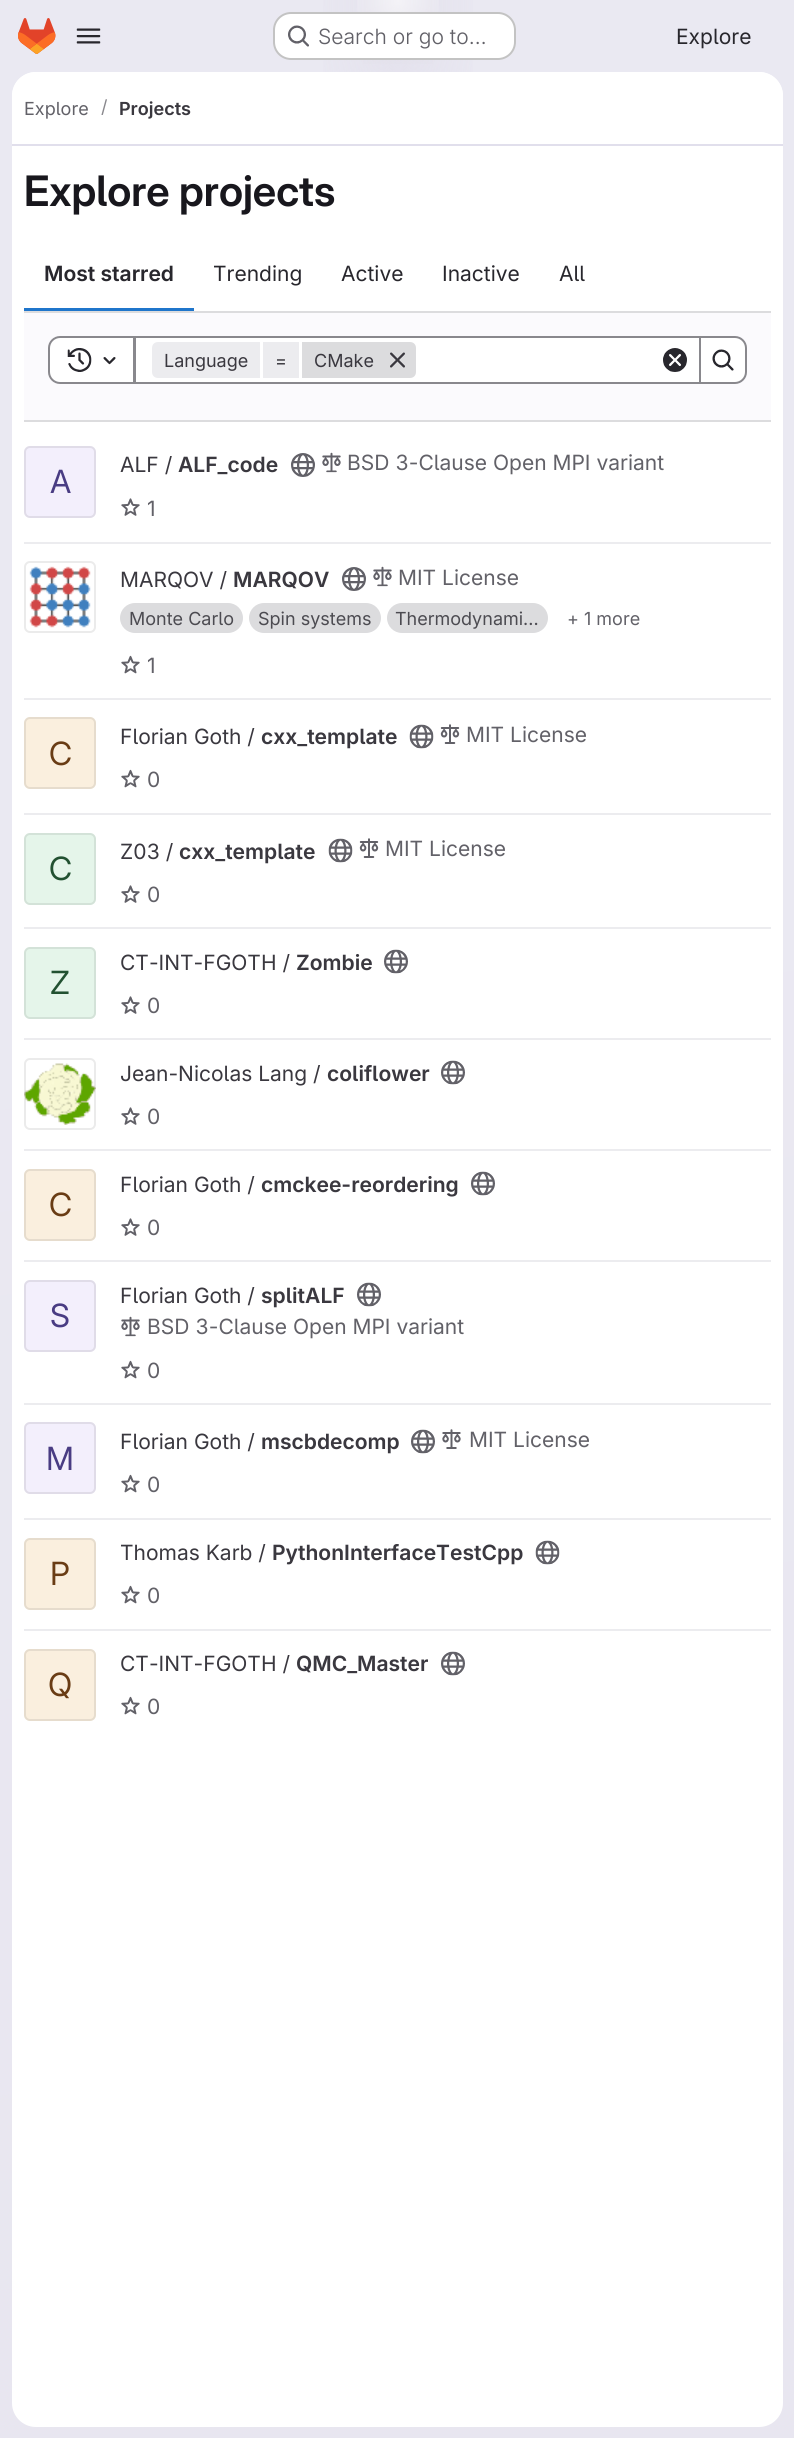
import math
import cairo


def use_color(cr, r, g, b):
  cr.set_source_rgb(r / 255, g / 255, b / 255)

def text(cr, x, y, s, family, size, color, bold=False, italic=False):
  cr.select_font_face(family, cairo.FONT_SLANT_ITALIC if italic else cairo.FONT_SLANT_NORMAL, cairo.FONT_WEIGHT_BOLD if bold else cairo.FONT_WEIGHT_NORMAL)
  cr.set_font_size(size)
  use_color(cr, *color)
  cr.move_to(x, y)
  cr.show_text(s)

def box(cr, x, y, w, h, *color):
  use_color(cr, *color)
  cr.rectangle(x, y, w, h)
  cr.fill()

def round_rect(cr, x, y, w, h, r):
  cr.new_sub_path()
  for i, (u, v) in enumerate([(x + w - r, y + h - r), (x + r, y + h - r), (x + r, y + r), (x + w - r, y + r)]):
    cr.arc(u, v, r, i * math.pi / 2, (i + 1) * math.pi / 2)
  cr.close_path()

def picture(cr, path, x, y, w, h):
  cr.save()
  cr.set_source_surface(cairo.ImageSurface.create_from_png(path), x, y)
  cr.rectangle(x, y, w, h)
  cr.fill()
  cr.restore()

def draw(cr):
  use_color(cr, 255, 255, 255)
  cr.paint()
  gradient = cairo.LinearGradient(618, 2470, 177, -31)
  gradient.add_color_stop_rgba(0, 0.91, 0.902, 0.941, 1)
  gradient.add_color_stop_rgba(0.7, 0.918, 0.914, 0.949, 1)
  cr.set_source(gradient)
  cr.rectangle(0, 0, 794, 2438)
  cr.fill()
  gradient = cairo.RadialGradient(0, 0, 0, 0, 0, 1)
  gradient.set_matrix(cairo.Matrix(1 / 398, 0, 0, 1 / 2439, -1 * 398 / 398, -1 * 0 / 2439))
  gradient.add_color_stop_rgba(0, 0.894, 0.886, 0.929, 1)
  gradient.add_color_stop_rgba(0.26, 0.894, 0.886, 0.929, 0)
  cr.set_source(gradient)
  cr.rectangle(323, 0, 150, 72)
  cr.fill()
  gradient = cairo.RadialGradient(0, 0, 0, 0, 0, 1)
  gradient.set_matrix(cairo.Matrix(1 / 398, 0, 0, 1 / 2439, -1 * 398 / 398, -1 * 0 / 2439))
  gradient.add_color_stop_rgba(0, 0.894, 0.886, 0.925, 1)
  gradient.add_color_stop_rgba(0.19, 0.894, 0.886, 0.925, 0)
  cr.set_source(gradient)
  cr.rectangle(363, 0, 70, 64)
  cr.fill()
  gradient = cairo.RadialGradient(398, 0, 0, 398, 0, 2471)
  gradient.add_color_stop_rgba(0, 1, 1, 1, 0.6)
  gradient.add_color_stop_rgba(0.02, 1, 1, 1, 0)
  cr.set_source(gradient)
  cr.rectangle(357, 0, 82, 42)
  cr.fill()
  picture(cr, "img_01.png", 18, 18, 38, 36)
  picture(cr, "img_02.png", 76, 28, 25, 16)
  use_color(cr, 255, 255, 255)
  round_rect(cr, 273, 12, 243, 48, 18)
  cr.fill()
  round_rect(cr, 274, 13, 241, 46, 17)
  cr.set_source_rgba(0.02, 0.02, 0.024, 0.24)
  cr.stroke()
  picture(cr, "img_03.png", 288, 25, 21, 22)
  use_color(cr, 255, 255, 255)
  round_rect(cr, 12, 72, 771, 2355, 24)
  cr.fill()
  cr.new_path()
  cr.move_to(36, 72)
  cr.line_to(759, 72)
  cr.curve_to(772.5, 72, 783, 82.5, 783, 96)
  cr.line_to(783, 146)
  cr.line_to(12, 146)
  cr.line_to(12, 96)
  cr.curve_to(12, 82.5, 22.5, 72, 36, 72)
  cr.close_path()
  cr.fill()
  box(cr, 12, 144, 771, 2, 225, 223, 236)
  box(cr, 24, 308, 170, 3, 31, 117, 203)
  box(cr, 24, 313, 747, 107, 251, 250, 253)
  box(cr, 24, 311, 747, 2, 220, 220, 222)
  box(cr, 24, 420, 747, 2, 220, 220, 222)
  use_color(cr, 255, 255, 255)
  cr.rectangle(135, 337, 565, 46)
  cr.fill_preserve()
  use_color(cr, 137, 136, 141)
  cr.stroke()
  use_color(cr, 255, 255, 255)
  cr.new_path()
  cr.move_to(60, 337)
  cr.line_to(134, 337)
  cr.line_to(134, 383)
  cr.line_to(60, 383)
  cr.curve_to(54, 383, 49, 378, 49, 372)
  cr.line_to(49, 348)
  cr.curve_to(49, 342, 54, 337, 60, 337)
  cr.close_path()
  cr.fill_preserve()
  use_color(cr, 137, 136, 141)
  cr.stroke()
  picture(cr, "img_04.png", 67, 348, 25, 24)
  picture(cr, "img_05.png", 103, 357, 13, 8)
  use_color(cr, 236, 236, 239)
  cr.new_path()
  cr.move_to(158, 342)
  cr.line_to(260, 342)
  cr.line_to(260, 378)
  cr.line_to(158, 378)
  cr.curve_to(154.5, 378, 152, 375.5, 152, 372)
  cr.line_to(152, 348)
  cr.curve_to(152, 344.5, 154.5, 342, 158, 342)
  cr.close_path()
  cr.fill()
  box(cr, 263, 342, 36, 36, 236, 236, 239)
  use_color(cr, 220, 220, 222)
  cr.new_path()
  cr.move_to(302, 342)
  cr.line_to(410, 342)
  cr.curve_to(413.5, 342, 416, 344.5, 416, 348)
  cr.line_to(416, 372)
  cr.curve_to(416, 375.5, 413.5, 378, 410, 378)
  cr.line_to(302, 378)
  cr.close_path()
  cr.fill()
  picture(cr, "img_06.png", 390, 352, 15, 16)
  picture(cr, "img_07.png", 663, 348, 24, 24)
  use_color(cr, 255, 255, 255)
  cr.new_path()
  cr.move_to(700, 337)
  cr.line_to(735, 337)
  cr.curve_to(741, 337, 746, 342, 746, 348)
  cr.line_to(746, 372)
  cr.curve_to(746, 378, 741, 383, 735, 383)
  cr.line_to(700, 383)
  cr.close_path()
  cr.fill_preserve()
  use_color(cr, 137, 136, 141)
  cr.stroke()
  picture(cr, "img_08.png", 712, 349, 22, 22)
  box(cr, 24, 542, 747, 2, 236, 236, 239)
  use_color(cr, 243, 239, 252)
  round_rect(cr, 24, 446, 72, 72, 6)
  cr.fill()
  round_rect(cr, 25, 447, 70, 70, 5)
  cr.set_source_rgba(0.02, 0.02, 0.024, 0.08)
  cr.stroke()
  picture(cr, "img_09.png", 291, 453, 24, 24)
  picture(cr, "img_10.png", 322, 452, 19, 21)
  picture(cr, "img_11.png", 121, 498, 19, 18)
  box(cr, 24, 698, 747, 2, 236, 236, 239)
  picture(cr, "img_12.png", 29, 566, 62, 62)
  round_rect(cr, 25, 562, 70, 70, 5)
  use_color(cr, 235, 235, 235)
  cr.stroke()
  picture(cr, "img_13.png", 342, 567, 24, 24)
  picture(cr, "img_10.png", 373, 566, 19, 21)
  use_color(cr, 220, 220, 222)
  round_rect(cr, 120, 603, 123, 30, 15)
  cr.fill()
  round_rect(cr, 249, 603, 132, 30, 15)
  cr.fill()
  round_rect(cr, 387, 603, 161, 30, 15)
  cr.fill()
  picture(cr, "img_14.png", 121, 655, 19, 19)
  box(cr, 24, 813, 747, 2, 236, 236, 239)
  use_color(cr, 250, 239, 222)
  round_rect(cr, 24, 717, 72, 72, 6)
  cr.fill()
  round_rect(cr, 25, 718, 70, 70, 5)
  cr.set_source_rgba(0.02, 0.02, 0.024, 0.08)
  cr.stroke()
  picture(cr, "img_15.png", 409, 724, 25, 25)
  picture(cr, "img_16.png", 440, 724, 20, 20)
  picture(cr, "img_14.png", 121, 769, 19, 19)
  box(cr, 24, 927, 747, 2, 236, 236, 239)
  use_color(cr, 229, 245, 234)
  round_rect(cr, 24, 833, 72, 72, 6)
  cr.fill()
  round_rect(cr, 25, 834, 70, 70, 5)
  cr.set_source_rgba(0.02, 0.02, 0.024, 0.08)
  cr.stroke()
  picture(cr, "img_15.png", 328, 838, 25, 25)
  picture(cr, "img_16.png", 359, 838, 20, 20)
  picture(cr, "img_17.png", 121, 885, 19, 18)
  box(cr, 24, 1038, 747, 2, 236, 236, 239)
  use_color(cr, 229, 245, 234)
  round_rect(cr, 24, 947, 72, 72, 6)
  cr.fill()
  round_rect(cr, 25, 948, 70, 70, 5)
  cr.set_source_rgba(0.02, 0.02, 0.024, 0.08)
  cr.stroke()
  picture(cr, "img_18.png", 384, 949, 24, 25)
  picture(cr, "img_17.png", 121, 996, 19, 18)
  box(cr, 24, 1149, 747, 2, 236, 236, 239)
  picture(cr, "img_19.png", 24, 1063, 72, 62)
  round_rect(cr, 25, 1059, 70, 70, 5)
  cr.set_source_rgba(0.02, 0.02, 0.024, 0.08)
  cr.stroke()
  picture(cr, "img_20.png", 441, 1060, 24, 25)
  picture(cr, "img_17.png", 121, 1107, 19, 18)
  box(cr, 24, 1260, 747, 2, 236, 236, 239)
  use_color(cr, 250, 239, 222)
  round_rect(cr, 24, 1169, 72, 72, 6)
  cr.fill()
  round_rect(cr, 25, 1170, 70, 70, 5)
  cr.set_source_rgba(0.02, 0.02, 0.024, 0.08)
  cr.stroke()
  picture(cr, "img_21.png", 471, 1171, 24, 25)
  picture(cr, "img_17.png", 121, 1218, 19, 18)
  box(cr, 24, 1403, 747, 2, 236, 236, 239)
  use_color(cr, 243, 239, 252)
  round_rect(cr, 24, 1280, 72, 72, 6)
  cr.fill()
  round_rect(cr, 25, 1281, 70, 70, 5)
  cr.set_source_rgba(0.02, 0.02, 0.024, 0.08)
  cr.stroke()
  picture(cr, "img_20.png", 357, 1282, 24, 25)
  picture(cr, "img_10.png", 121, 1316, 19, 21)
  picture(cr, "img_14.png", 121, 1360, 19, 19)
  box(cr, 24, 1518, 747, 2, 236, 236, 239)
  use_color(cr, 243, 239, 252)
  round_rect(cr, 24, 1422, 72, 72, 6)
  cr.fill()
  round_rect(cr, 25, 1423, 70, 70, 5)
  cr.set_source_rgba(0.02, 0.02, 0.024, 0.08)
  cr.stroke()
  picture(cr, "img_21.png", 411, 1429, 24, 25)
  picture(cr, "img_22.png", 442, 1429, 19, 20)
  picture(cr, "img_14.png", 121, 1474, 19, 19)
  box(cr, 24, 1629, 747, 2, 236, 236, 239)
  use_color(cr, 250, 239, 222)
  round_rect(cr, 24, 1538, 72, 72, 6)
  cr.fill()
  round_rect(cr, 25, 1539, 70, 70, 5)
  cr.set_source_rgba(0.02, 0.02, 0.024, 0.08)
  cr.stroke()
  picture(cr, "img_23.png", 535, 1540, 25, 25)
  picture(cr, "img_14.png", 121, 1585, 19, 19)
  use_color(cr, 250, 239, 222)
  round_rect(cr, 24, 1649, 72, 72, 6)
  cr.fill()
  round_rect(cr, 25, 1650, 70, 70, 5)
  cr.set_source_rgba(0.02, 0.02, 0.024, 0.08)
  cr.stroke()
  picture(cr, "img_21.png", 441, 1651, 24, 25)
  picture(cr, "img_14.png", 121, 1696, 19, 19)
  text(cr, 318, 44, "Search or go to…", "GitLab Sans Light", 21, (98, 97, 104))
  text(cr, 676, 44, "Explore", "GitLab Sans", 21, (40, 39, 45))
  text(cr, 24, 115, "Explore", "GitLab Sans", 18, (98, 97, 104))
  text(cr, 101, 113, "/", "GitLab Sans", 18, (137, 136, 141))
  text(cr, 119, 115, "Projects", "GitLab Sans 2 SemiBold", 18, (58, 56, 63))
  text(cr, 24, 206, "Explore projects", "GitLab Sans SemiBold", 42, (24, 23, 29))
  text(cr, 44, 281, "Most starred", "GitLab Sans 2 SemiBold", 21, (40, 39, 45))
  text(cr, 213, 281, "Trending", "GitLab Sans", 21, (40, 39, 45))
  text(cr, 341, 281, "Active", "GitLab Sans", 21, (40, 39, 45))
  text(cr, 442, 281, "Inactive", "GitLab Sans", 21, (40, 39, 45))
  text(cr, 559, 281, "All", "GitLab Sans", 21, (40, 39, 45))
  text(cr, 164, 367, "Language", "GitLab Sans", 18, (58, 56, 63))
  text(cr, 275, 367, "=", "GitLab Sans", 18, (58, 56, 63))
  text(cr, 314, 367, "CMake", "GitLab Sans", 18, (58, 56, 63))
  text(cr, 50, 493, "A", "GitLab Sans 2", 32, (73, 60, 131))
  text(cr, 120, 472, "ALF /", "GitLab Sans", 21, (58, 56, 63))
  text(cr, 178, 472, "ALF_code", "GitLab Sans 2 SemiBold", 21, (58, 56, 63))
  text(cr, 347, 470, "BSD 3-Clause Open MPI variant", "GitLab Sans", 21, (98, 97, 104))
  text(cr, 147, 516, "1", "GitLab Sans", 21, (98, 97, 104))
  text(cr, 120, 587, "MARQOV /", "GitLab Sans", 21, (58, 56, 63))
  text(cr, 233, 587, "MARQOV", "GitLab Sans 2 SemiBold", 21, (58, 56, 63))
  text(cr, 398, 585, "MIT License", "GitLab Sans", 21, (98, 97, 104))
  text(cr, 129, 625, "Monte Carlo", "GitLab Sans", 18, (76, 75, 81))
  text(cr, 258, 625, "Spin systems", "GitLab Sans", 18, (76, 75, 81))
  text(cr, 395, 625, "Thermodynami...", "GitLab Sans", 18, (76, 75, 81))
  text(cr, 567, 625, "+ 1 more", "GitLab Sans", 18, (98, 97, 104))
  text(cr, 147, 673, "1", "GitLab Sans", 21, (98, 97, 104))
  text(cr, 49, 765, "C", "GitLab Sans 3", 32, (105, 60, 20))
  text(cr, 120, 744, "Florian Goth /", "GitLab Sans", 21, (58, 56, 63))
  text(cr, 261, 744, "cxx_template", "GitLab Sans 2 SemiBold", 21, (58, 56, 63))
  text(cr, 466, 742, "MIT License", "GitLab Sans", 21, (98, 97, 104))
  text(cr, 147, 787, "0", "GitLab Sans", 21, (98, 97, 104))
  text(cr, 49, 880, "C", "GitLab Sans 3", 32, (34, 81, 49))
  text(cr, 120, 859, "Z03 /", "GitLab Sans", 21, (58, 56, 63))
  text(cr, 179, 859, "cxx_template", "GitLab Sans 2 SemiBold", 21, (58, 56, 63))
  text(cr, 385, 856, "MIT License", "GitLab Sans", 21, (98, 97, 104))
  text(cr, 147, 902, "0", "GitLab Sans", 21, (98, 97, 104))
  text(cr, 50, 994, "Z", "GitLab Sans 2", 32, (34, 81, 49))
  text(cr, 120, 970, "CT-INT-FGOTH /", "GitLab Sans", 21, (58, 56, 63))
  text(cr, 296, 970, "Zombie", "GitLab Sans 2 SemiBold", 21, (58, 56, 63))
  text(cr, 147, 1013, "0", "GitLab Sans", 21, (98, 97, 104))
  text(cr, 120, 1081, "Jean-Nicolas Lang /", "GitLab Sans", 21, (58, 56, 63))
  text(cr, 327, 1081, "coliflower", "GitLab Sans 2 SemiBold", 21, (58, 56, 63))
  text(cr, 147, 1124, "0", "GitLab Sans", 21, (98, 97, 104))
  text(cr, 49, 1216, "C", "GitLab Sans 3", 32, (105, 60, 20))
  text(cr, 120, 1192, "Florian Goth /", "GitLab Sans", 21, (58, 56, 63))
  text(cr, 261, 1192, "cmckee-reordering", "GitLab Sans 2 SemiBold", 21, (58, 56, 63))
  text(cr, 147, 1235, "0", "GitLab Sans", 21, (98, 97, 104))
  text(cr, 50, 1327, "S", "GitLab Sans 2", 32, (73, 60, 131))
  text(cr, 120, 1303, "Florian Goth /", "GitLab Sans", 21, (58, 56, 63))
  text(cr, 261, 1303, "splitALF", "GitLab Sans 2 SemiBold", 21, (58, 56, 63))
  text(cr, 147, 1334, "BSD 3-Clause Open MPI variant", "GitLab Sans", 21, (98, 97, 104))
  text(cr, 147, 1378, "0", "GitLab Sans", 21, (98, 97, 104))
  text(cr, 46, 1470, "M", "GitLab Sans 2", 32, (73, 60, 131))
  text(cr, 120, 1449, "Florian Goth /", "GitLab Sans", 21, (58, 56, 63))
  text(cr, 261, 1449, "mscbdecomp", "GitLab Sans 2 SemiBold", 21, (58, 56, 63))
  text(cr, 469, 1447, "MIT License", "GitLab Sans", 21, (98, 97, 104))
  text(cr, 147, 1492, "0", "GitLab Sans", 21, (98, 97, 104))
  text(cr, 50, 1585, "P", "GitLab Sans 2", 32, (105, 60, 20))
  text(cr, 120, 1560, "Thomas Karb /", "GitLab Sans", 21, (58, 56, 63))
  text(cr, 272, 1560, "PythonInterfaceTestCpp", "GitLab Sans 2 SemiBold", 21, (58, 56, 63))
  text(cr, 147, 1603, "0", "GitLab Sans", 21, (98, 97, 104))
  text(cr, 48, 1696, "Q", "GitLab Sans 2", 32, (105, 60, 20))
  text(cr, 120, 1671, "CT-INT-FGOTH /", "GitLab Sans", 21, (58, 56, 63))
  text(cr, 296, 1671, "QMC_Master", "GitLab Sans 2 SemiBold", 21, (58, 56, 63))
  text(cr, 147, 1714, "0", "GitLab Sans", 21, (98, 97, 104))


surface = cairo.ImageSurface(cairo.FORMAT_RGB24, 794, 2438)
cr = cairo.Context(surface)
options = cairo.FontOptions()
options.set_hint_metrics(cairo.HINT_METRICS_OFF)
options.set_hint_style(cairo.HINT_STYLE_NONE)
cr.set_font_options(options)
cr.set_miter_limit(4)
draw(cr)
surface.write_to_png("out.png")
